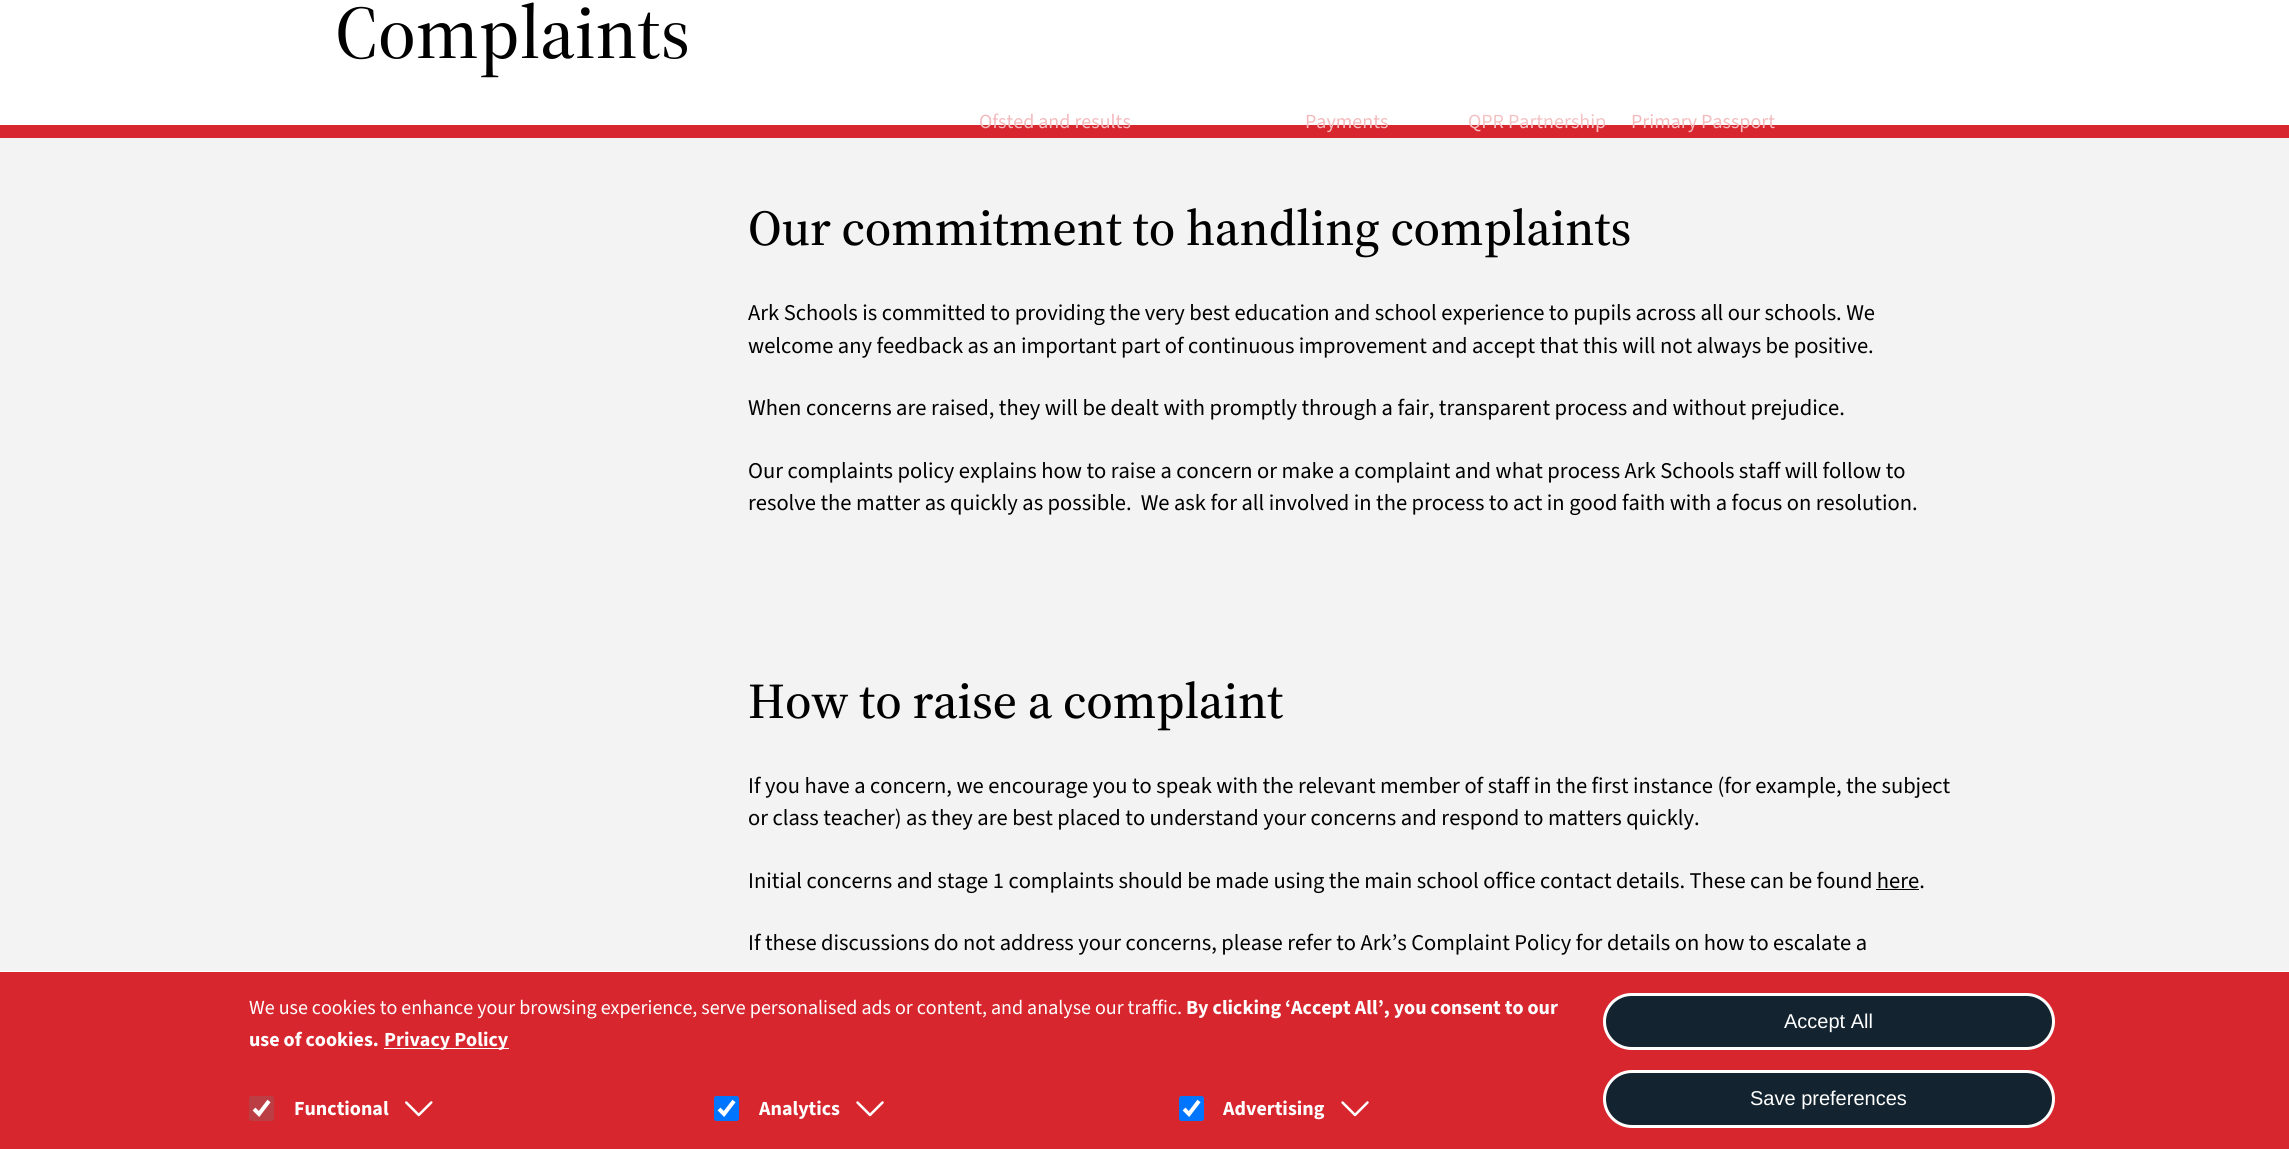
import math
import cairo


def use_color(cr, r, g, b):
  cr.set_source_rgb(r / 255, g / 255, b / 255)

def text(cr, x, y, s, family, size, color, bold=False, italic=False):
  cr.select_font_face(family, cairo.FONT_SLANT_ITALIC if italic else cairo.FONT_SLANT_NORMAL, cairo.FONT_WEIGHT_BOLD if bold else cairo.FONT_WEIGHT_NORMAL)
  cr.set_font_size(size)
  use_color(cr, *color)
  cr.move_to(x, y)
  cr.show_text(s)

def box(cr, x, y, w, h, *color):
  use_color(cr, *color)
  cr.rectangle(x, y, w, h)
  cr.fill()

def round_rect(cr, x, y, w, h, r):
  cr.new_sub_path()
  for i, (u, v) in enumerate([(x + w - r, y + h - r), (x + r, y + h - r), (x + r, y + r), (x + w - r, y + r)]):
    cr.arc(u, v, r, i * math.pi / 2, (i + 1) * math.pi / 2)
  cr.close_path()

def picture(cr, path, x, y, w, h):
  cr.save()
  cr.set_source_surface(cairo.ImageSurface.create_from_png(path), x, y)
  cr.rectangle(x, y, w, h)
  cr.fill()
  cr.restore()

def draw(cr):
  use_color(cr, 255, 255, 255)
  cr.paint()
  box(cr, 0, 125, 2289, 13, 216, 38, 46)
  box(cr, 0, 138, 2289, 833, 243, 243, 243)
  box(cr, 1876, 889, 43, 1, 0, 0, 0)
  box(cr, 0, 972, 2289, 177, 216, 38, 46)
  box(cr, 384, 1048, 125, 1, 255, 255, 255)
  use_color(cr, 187, 62, 68)
  round_rect(cr, 249, 1096, 25, 25, 2.5)
  cr.fill()
  cr.new_path()
  cr.move_to(254, 1109)
  cr.line_to(259, 1114)
  cr.line_to(269, 1101)
  use_color(cr, 255, 255, 255)
  cr.set_line_width(4)
  cr.stroke()
  picture(cr, "img_01.png", 405, 1101, 28, 16)
  use_color(cr, 0, 117, 255)
  round_rect(cr, 714, 1096, 25, 25, 2.5)
  cr.fill()
  cr.new_path()
  cr.move_to(719, 1109)
  cr.line_to(724, 1114)
  cr.line_to(734, 1101)
  use_color(cr, 255, 255, 255)
  cr.stroke()
  picture(cr, "img_02.png", 856, 1101, 28, 16)
  use_color(cr, 0, 117, 255)
  round_rect(cr, 1179, 1096, 25, 25, 2.5)
  cr.fill()
  cr.new_path()
  cr.move_to(1184, 1109)
  cr.line_to(1189, 1114)
  cr.line_to(1199, 1101)
  use_color(cr, 255, 255, 255)
  cr.stroke()
  picture(cr, "img_02.png", 1341, 1101, 28, 16)
  use_color(cr, 19, 36, 48)
  round_rect(cr, 1604.5, 994.5, 449, 54, 27)
  cr.fill_preserve()
  use_color(cr, 255, 255, 255)
  cr.set_line_width(3)
  cr.stroke()
  use_color(cr, 19, 36, 48)
  round_rect(cr, 1604.5, 1071.5, 449, 55, 27.5)
  cr.fill_preserve()
  use_color(cr, 255, 255, 255)
  cr.stroke()
  text(cr, 335, 58, "Complaints", "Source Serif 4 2 Medium", 75, (0, 0, 0))
  text(cr, 748, 245, "Our commitment to handling complaints", "Source Serif 4 Medium", 50, (0, 0, 0))
  text(cr, 748, 320, "Ark Schools is committed to providing the very best education and school experience to pupils across all our schools. We", "Source Sans 3", 22.5, (0, 0, 0))
  text(cr, 748, 353, "welcome any feedback as an important part of continuous improvement and accept that this will not always be positive.", "Source Sans 3", 22.5, (0, 0, 0))
  text(cr, 748, 415, "When concerns are raised, they will be dealt with promptly through a fair, transparent process and without prejudice.", "Source Sans 3", 22.5, (0, 0, 0))
  text(cr, 748, 478, "Our complaints policy explains how to raise a concern or make a complaint and what process Ark Schools staff will follow to", "Source Sans 3", 22.5, (0, 0, 0))
  text(cr, 748, 510, "resolve the matter as quickly as possible.  We ask for all involved in the process to act in good faith with a focus on resolution.", "Source Sans 3", 22.5, (0, 0, 0))
  text(cr, 748, 718, "How to raise a complaint", "Source Serif 4 Medium", 50, (0, 0, 0))
  text(cr, 748, 793, "If you have a concern, we encourage you to speak with the relevant member of staff in the first instance (for example, the subject", "Source Sans 3", 22.5, (0, 0, 0))
  text(cr, 748, 825, "or class teacher) as they are best placed to understand your concerns and respond to matters quickly.", "Source Sans 3", 22.5, (0, 0, 0))
  text(cr, 748, 888, "Initial concerns and stage 1 complaints should be made using the main school office contact details. These can be found here.", "Source Sans 3", 22.5, (0, 0, 0))
  text(cr, 748, 950, "If these discussions do not address your concerns, please refer to Ark’s Complaint Policy for details on how to escalate a", "Source Sans 3", 22.5, (0, 0, 0))
  text(cr, 979, 128, "Ofsted and results", "Source Sans 3", 20, (243, 187, 190))
  text(cr, 1468, 128, "QPR Partnership", "Source Sans 3", 20, (244, 194, 196))
  text(cr, 1305, 128, "Payments", "Source Sans 3", 20, (243, 187, 190))
  text(cr, 1631, 128, "Primary Passport", "Source Sans 3", 20, (243, 187, 190))
  text(cr, 249, 1014, "We use cookies to enhance your browsing experience, serve personalised ads or content, and analyse our traffic.", "Source Sans 3", 20, (255, 255, 255))
  text(cr, 1186, 1014, "By clicking ‘Accept All’, you consent to our", "Source Sans 3", 20, (255, 255, 255), bold=True)
  text(cr, 249, 1046, "use of cookies.", "Source Sans 3", 20, (255, 255, 255), bold=True)
  text(cr, 384, 1046, "Privacy Policy", "Source Sans 3", 20, (255, 255, 255), bold=True)
  text(cr, 294, 1115, "Functional", "Source Sans 3", 20, (255, 255, 255), bold=True)
  text(cr, 759, 1115, "Analytics", "Source Sans 3", 20, (255, 255, 255), bold=True)
  text(cr, 1223, 1115, "Advertising", "Source Sans 3", 20, (255, 255, 255), bold=True)
  text(cr, 1784, 1028, "Accept All", "Liberation Sans", 20, (255, 255, 255))
  text(cr, 1750, 1105, "Save preferences", "Liberation Sans", 20, (255, 255, 255))


surface = cairo.ImageSurface(cairo.FORMAT_RGB24, 2289, 1149)
cr = cairo.Context(surface)
options = cairo.FontOptions()
options.set_hint_metrics(cairo.HINT_METRICS_OFF)
options.set_hint_style(cairo.HINT_STYLE_NONE)
cr.set_font_options(options)
cr.set_miter_limit(4)
draw(cr)
surface.write_to_png("out.png")
